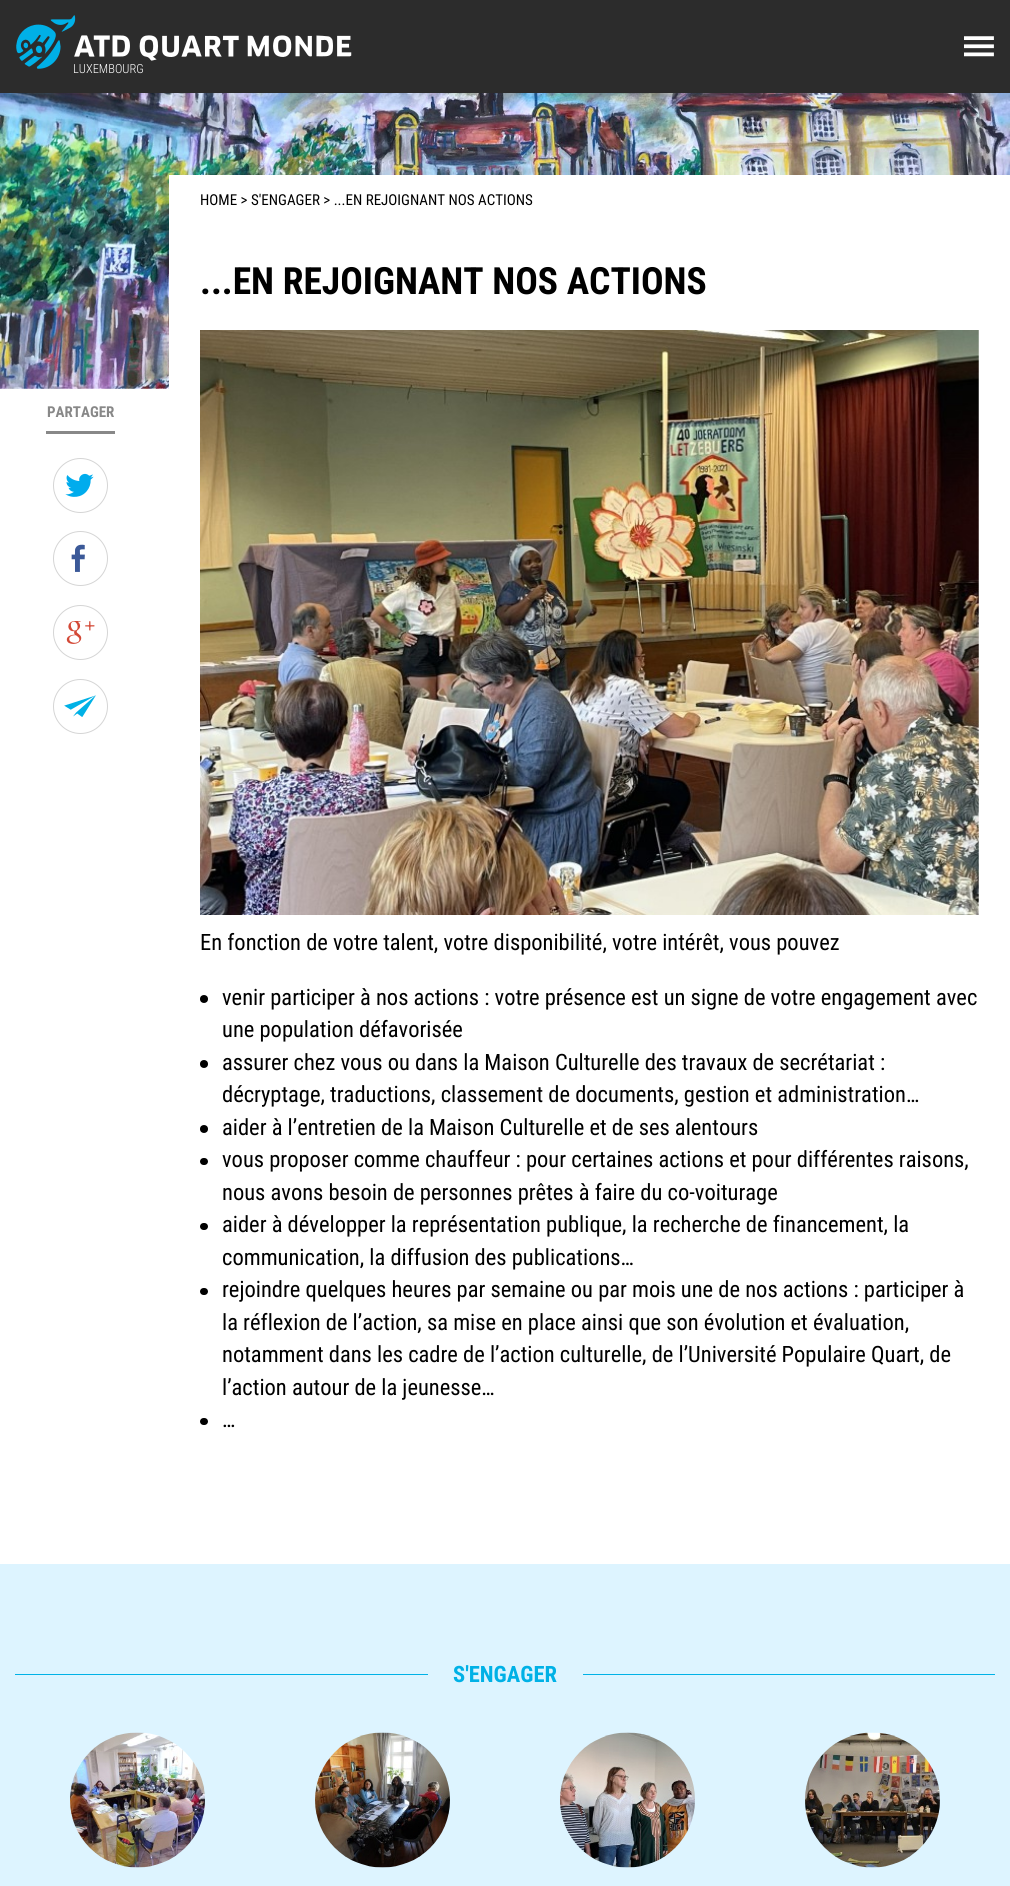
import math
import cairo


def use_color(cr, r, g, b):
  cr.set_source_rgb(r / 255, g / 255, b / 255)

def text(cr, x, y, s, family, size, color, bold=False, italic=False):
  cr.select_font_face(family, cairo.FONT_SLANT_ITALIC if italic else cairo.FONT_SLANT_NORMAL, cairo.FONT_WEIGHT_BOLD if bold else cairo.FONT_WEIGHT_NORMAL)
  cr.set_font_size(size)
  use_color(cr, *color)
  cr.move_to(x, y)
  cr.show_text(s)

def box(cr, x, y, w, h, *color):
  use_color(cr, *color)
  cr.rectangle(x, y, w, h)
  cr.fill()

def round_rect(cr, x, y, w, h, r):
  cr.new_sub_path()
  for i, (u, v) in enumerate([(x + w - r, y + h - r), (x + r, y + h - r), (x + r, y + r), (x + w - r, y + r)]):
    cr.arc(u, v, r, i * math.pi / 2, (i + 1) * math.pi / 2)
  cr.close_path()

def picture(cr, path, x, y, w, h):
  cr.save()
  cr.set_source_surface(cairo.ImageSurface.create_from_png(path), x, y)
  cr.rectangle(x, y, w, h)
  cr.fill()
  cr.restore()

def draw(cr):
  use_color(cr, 255, 255, 255)
  cr.paint()
  box(cr, 0, 0, 1010, 93, 44, 44, 44)
  picture(cr, "img_01.png", 964, 36, 30, 21)
  picture(cr, "img_02.png", 16, 15, 336, 54)
  picture(cr, "img_03.png", 0, 93, 1010, 296)
  box(cr, 46, 431, 69, 3, 136, 136, 136)
  cr.arc(80.5, 485.5, 27, 0, 2 * math.pi)
  use_color(cr, 213, 213, 213)
  cr.set_line_width(1)
  cr.stroke()
  picture(cr, "img_04.png", 65, 473, 29, 24)
  cr.arc(80.5, 558.5, 27, 0, 2 * math.pi)
  cr.stroke()
  picture(cr, "img_05.png", 71, 544, 14, 28)
  cr.arc(80.5, 632.5, 27, 0, 2 * math.pi)
  cr.stroke()
  picture(cr, "img_06.png", 66, 621, 29, 23)
  cr.arc(80.5, 706.5, 27, 0, 2 * math.pi)
  cr.stroke()
  picture(cr, "img_07.png", 64, 695, 32, 22)
  box(cr, 169, 175, 841, 214, 255, 255, 255)
  picture(cr, "img_08.png", 200, 330, 779, 585)
  use_color(cr, 0, 0, 0)
  cr.arc(204, 999, 4, 0, 2 * math.pi)
  cr.fill()
  cr.arc(204, 1064, 4, 0, 2 * math.pi)
  cr.fill()
  cr.arc(204, 1129, 4, 0, 2 * math.pi)
  cr.fill()
  round_rect(cr, 200, 1158, 8, 7, 3.5)
  cr.fill()
  round_rect(cr, 200, 1223, 8, 7, 3.5)
  cr.fill()
  round_rect(cr, 200, 1288, 8, 7, 3.5)
  cr.fill()
  round_rect(cr, 200, 1418, 8, 7, 3.5)
  cr.fill()
  box(cr, 0, 1564, 1010, 322, 221, 244, 255)
  box(cr, 15, 1674, 980, 1, 0, 177, 230)
  box(cr, 428, 1674, 155, 1, 221, 244, 255)
  picture(cr, "img_09.png", 70, 1732, 135, 136)
  picture(cr, "img_10.png", 315, 1732, 135, 136)
  picture(cr, "img_11.png", 560, 1732, 135, 136)
  picture(cr, "img_12.png", 805, 1732, 135, 136)
  text(cr, 73, 73, "LUXEMBOURG", "Roboto Condensed Light", 12.5, (255, 255, 255))
  text(cr, 47, 417, "PARTAGER", "Roboto Condensed", 15, (136, 136, 136), bold=True)
  text(cr, 200, 205, "HOME > S'ENGAGER > ...EN REJOIGNANT NOS ACTIONS", "Roboto Condensed", 15, (0, 0, 0))
  text(cr, 200, 294, "...EN REJOIGNANT NOS ACTIONS", "Roboto Condensed", 37.5, (0, 0, 0), bold=True)
  text(cr, 200, 950, "En fonction de votre talent, votre disponibilité, votre intérêt, vous pouvez", "Roboto Condensed", 22.5, (0, 0, 0))
  text(cr, 222, 1005, "venir participer à nos actions : votre présence est un signe de votre engagement avec", "Roboto Condensed", 22.5, (0, 0, 0))
  text(cr, 222, 1037, "une population défavorisée", "Roboto Condensed", 22.5, (0, 0, 0))
  text(cr, 222, 1070, "assurer chez vous ou dans la Maison Culturelle des travaux de secrétariat :", "Roboto Condensed", 22.5, (0, 0, 0))
  text(cr, 222, 1102, "décryptage, traductions, classement de documents, gestion et administration…", "Roboto Condensed", 22.5, (0, 0, 0))
  text(cr, 222, 1135, "aider à l’entretien de la Maison Culturelle et de ses alentours", "Roboto Condensed", 22.5, (0, 0, 0))
  text(cr, 222, 1167, "vous proposer comme chauffeur : pour certaines actions et pour différentes raisons,", "Roboto Condensed", 22.5, (0, 0, 0))
  text(cr, 222, 1200, "nous avons besoin de personnes prêtes à faire du co-voiturage", "Roboto Condensed", 22.5, (0, 0, 0))
  text(cr, 222, 1232, "aider à développer la représentation publique, la recherche de financement, la", "Roboto Condensed", 22.5, (0, 0, 0))
  text(cr, 222, 1265, "communication, la diffusion des publications…", "Roboto Condensed", 22.5, (0, 0, 0))
  text(cr, 222, 1297, "rejoindre quelques heures par semaine ou par mois une de nos actions : participer à", "Roboto Condensed", 22.5, (0, 0, 0))
  text(cr, 222, 1330, "la réflexion de l’action, sa mise en place ainsi que son évolution et évaluation,", "Roboto Condensed", 22.5, (0, 0, 0))
  text(cr, 222, 1362, "notamment dans les cadre de l’action culturelle, de l’Université Populaire Quart, de", "Roboto Condensed", 22.5, (0, 0, 0))
  text(cr, 222, 1395, "l’action autour de la jeunesse…", "Roboto Condensed", 22.5, (0, 0, 0))
  text(cr, 222, 1427, "…", "Roboto Condensed", 22.5, (0, 0, 0))
  text(cr, 453, 1682, "S'ENGAGER", "Roboto Condensed", 22.5, (0, 177, 230), bold=True)


surface = cairo.ImageSurface(cairo.FORMAT_RGB24, 1010, 1886)
cr = cairo.Context(surface)
options = cairo.FontOptions()
options.set_hint_metrics(cairo.HINT_METRICS_OFF)
options.set_hint_style(cairo.HINT_STYLE_NONE)
cr.set_font_options(options)
cr.set_miter_limit(4)
draw(cr)
surface.write_to_png("out.png")
